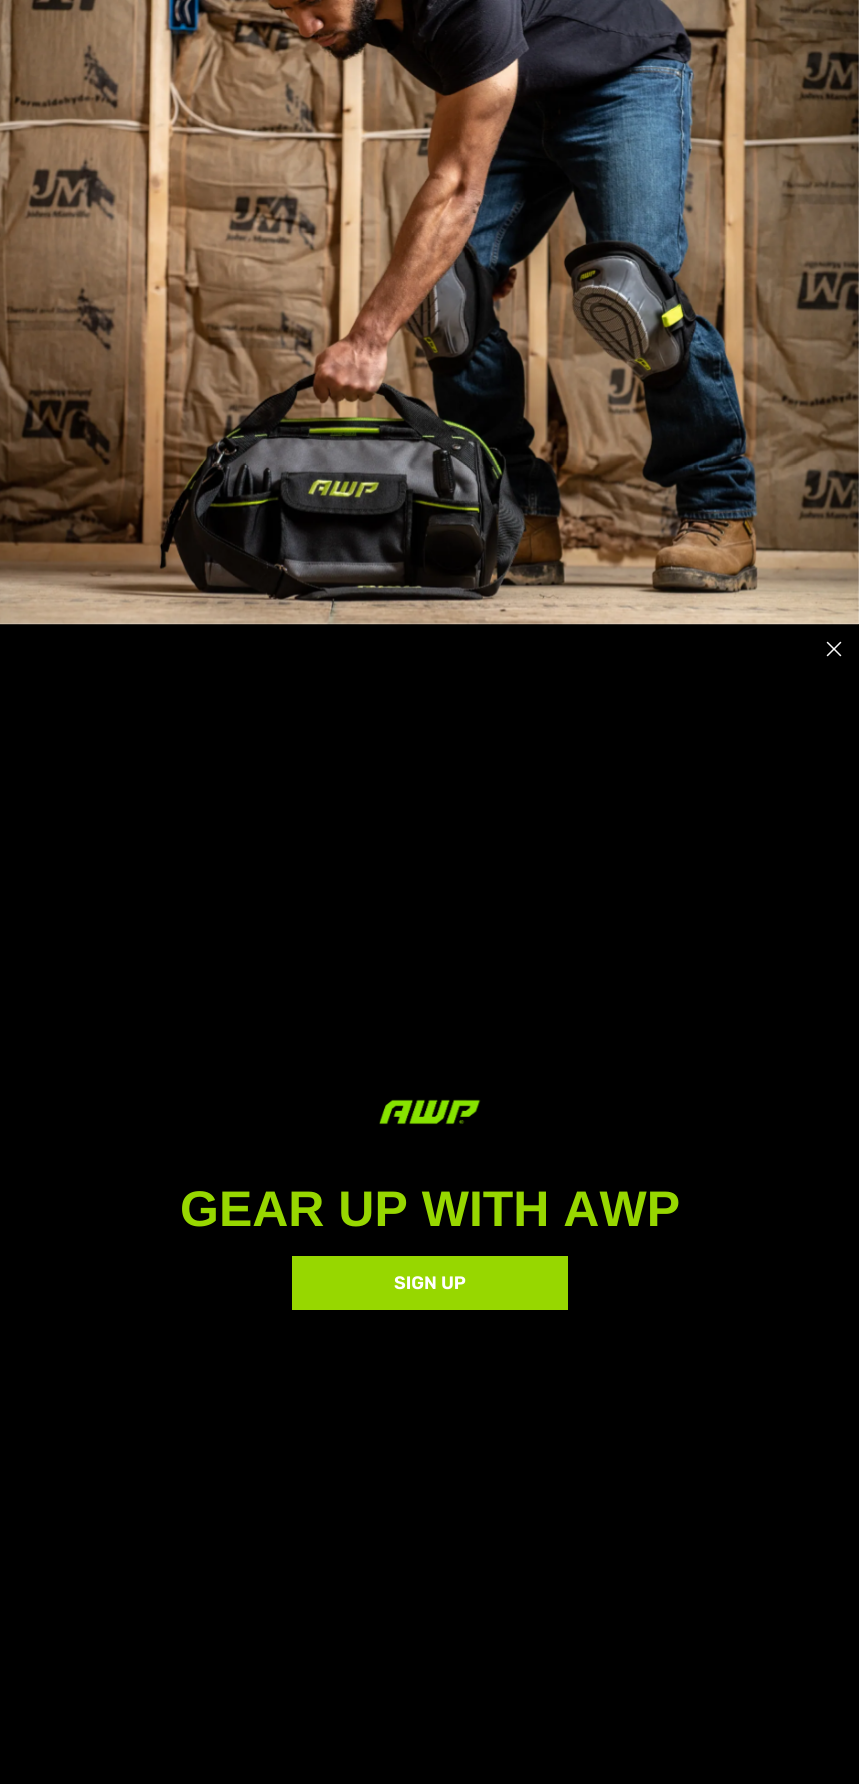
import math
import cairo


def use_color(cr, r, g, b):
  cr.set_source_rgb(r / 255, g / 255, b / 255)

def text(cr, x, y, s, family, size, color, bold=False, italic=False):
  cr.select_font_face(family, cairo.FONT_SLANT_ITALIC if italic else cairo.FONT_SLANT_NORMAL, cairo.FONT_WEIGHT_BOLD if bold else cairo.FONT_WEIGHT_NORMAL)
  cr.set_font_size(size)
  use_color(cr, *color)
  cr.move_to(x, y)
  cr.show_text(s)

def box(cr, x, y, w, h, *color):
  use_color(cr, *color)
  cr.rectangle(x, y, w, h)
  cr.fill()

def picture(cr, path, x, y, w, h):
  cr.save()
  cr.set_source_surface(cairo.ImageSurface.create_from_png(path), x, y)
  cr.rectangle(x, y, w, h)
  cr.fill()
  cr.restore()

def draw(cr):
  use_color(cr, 247, 247, 247)
  cr.paint()
  box(cr, 0, 624, 859, 1160, 0, 0, 0)
  picture(cr, "img_01.png", 0, 0, 859, 625)
  cr.new_path()
  cr.move_to(827.5, 642.5)
  cr.line_to(840.5, 655.5)
  use_color(cr, 247, 247, 247)
  cr.set_line_width(1.5)
  cr.set_line_cap(cairo.LINE_CAP_ROUND)
  cr.stroke()
  cr.new_path()
  cr.move_to(840.5, 642.5)
  cr.line_to(827.5, 655.5)
  cr.set_source_rgba(1, 1, 1, 0.97)
  cr.stroke()
  picture(cr, "img_02.png", 379, 1099, 102, 26)
  box(cr, 292, 1256, 276, 54, 151, 215, 0)
  text(cr, 180, 1226, "GEAR UP WITH AWP", "Liberation Sans", 50, (151, 215, 0), bold=True)
  text(cr, 394, 1289, "SIGN UP", "Rubik SemiBold", 18, (255, 255, 255))


surface = cairo.ImageSurface(cairo.FORMAT_RGB24, 859, 1784)
cr = cairo.Context(surface)
options = cairo.FontOptions()
options.set_hint_metrics(cairo.HINT_METRICS_OFF)
options.set_hint_style(cairo.HINT_STYLE_NONE)
cr.set_font_options(options)
cr.set_miter_limit(4)
draw(cr)
surface.write_to_png("out.png")
